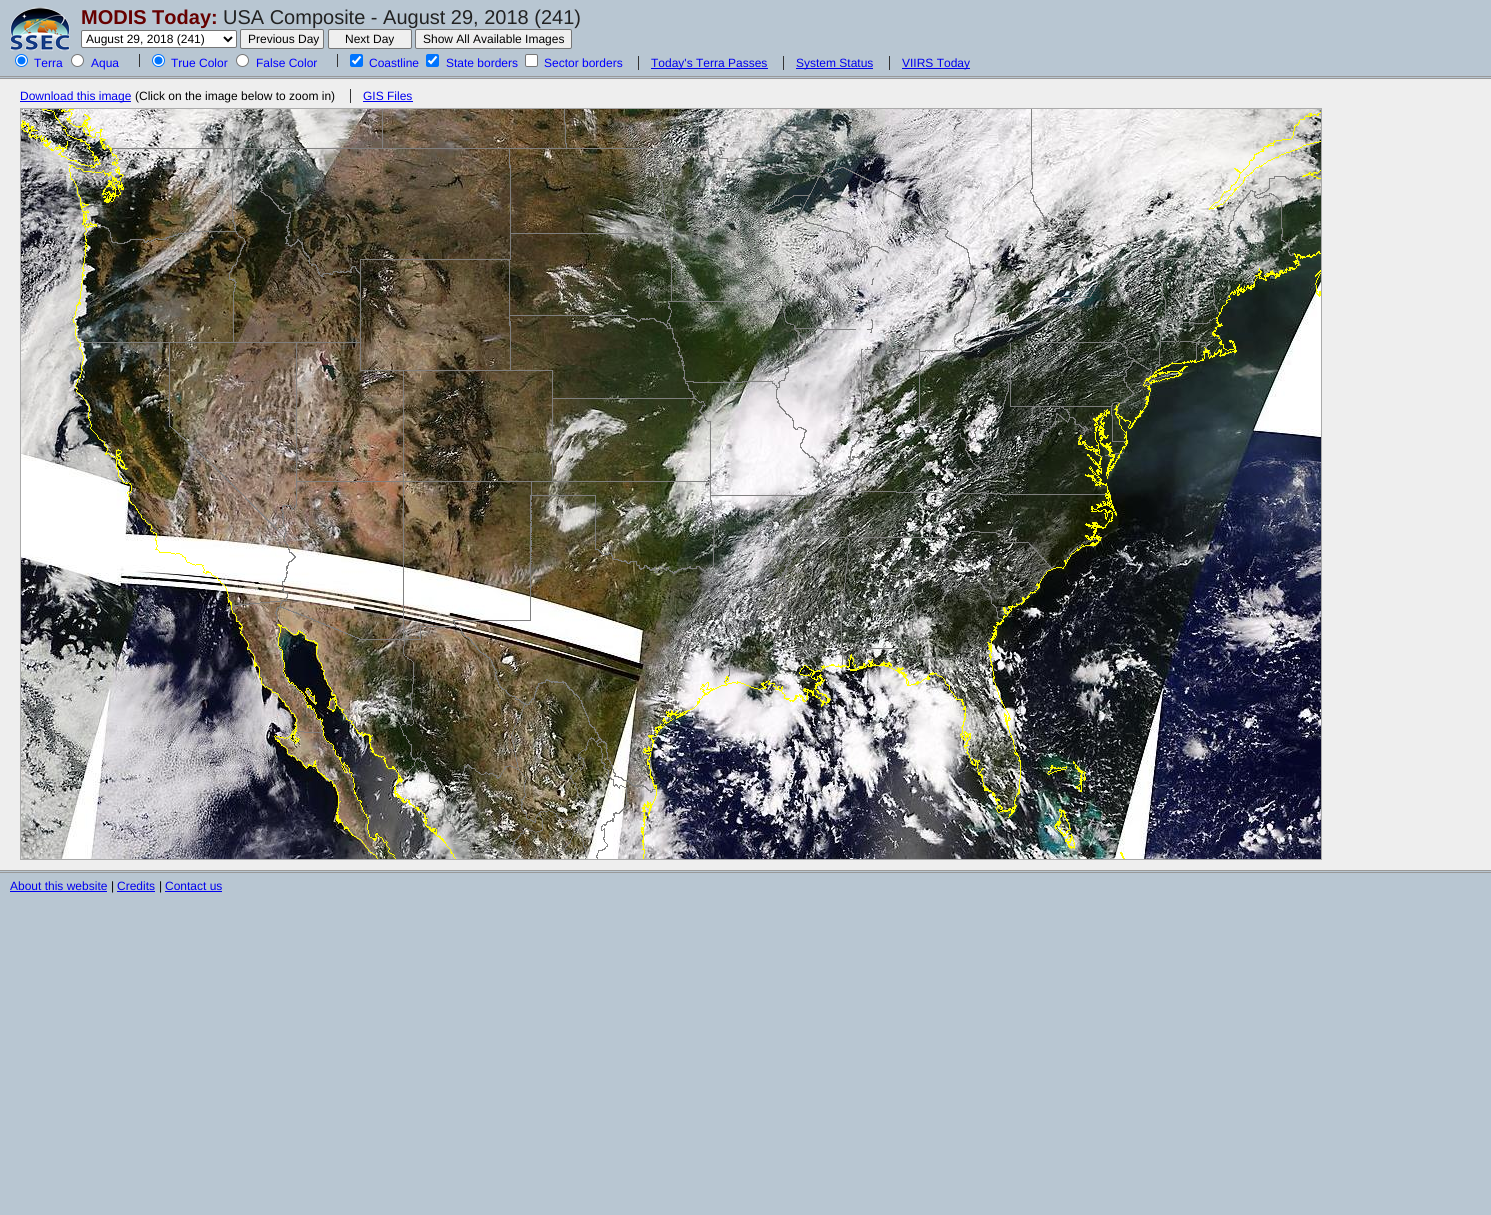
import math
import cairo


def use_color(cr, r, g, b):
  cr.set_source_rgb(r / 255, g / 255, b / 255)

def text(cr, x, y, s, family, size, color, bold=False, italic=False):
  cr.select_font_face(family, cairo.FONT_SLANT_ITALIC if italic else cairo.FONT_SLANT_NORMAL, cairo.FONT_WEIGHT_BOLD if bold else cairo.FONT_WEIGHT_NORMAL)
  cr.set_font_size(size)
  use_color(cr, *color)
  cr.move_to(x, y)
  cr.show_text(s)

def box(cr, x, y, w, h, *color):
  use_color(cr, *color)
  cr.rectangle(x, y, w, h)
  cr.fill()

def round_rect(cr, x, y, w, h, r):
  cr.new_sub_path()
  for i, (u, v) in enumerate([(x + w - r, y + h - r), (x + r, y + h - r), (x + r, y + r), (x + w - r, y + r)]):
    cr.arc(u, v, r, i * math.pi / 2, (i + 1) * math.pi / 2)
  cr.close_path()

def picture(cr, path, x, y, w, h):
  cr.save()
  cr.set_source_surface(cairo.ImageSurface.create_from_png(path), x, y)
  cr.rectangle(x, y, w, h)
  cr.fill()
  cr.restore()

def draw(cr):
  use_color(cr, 184, 198, 210)
  cr.paint()
  box(cr, 0, 76, 1491, 1, 153, 153, 153)
  box(cr, 0, 78, 1491, 1, 153, 153, 153)
  picture(cr, "img_01.png", 10, 7, 60, 44)
  use_color(cr, 255, 255, 255)
  round_rect(cr, 81.5, 30.5, 155, 17, 1.5)
  cr.fill_preserve()
  use_color(cr, 118, 118, 118)
  cr.set_line_width(1)
  cr.stroke()
  cr.new_path()
  cr.move_to(224, 37)
  cr.line_to(228, 41)
  cr.line_to(232, 37)
  use_color(cr, 0, 0, 0)
  cr.set_line_width(2)
  cr.stroke()
  use_color(cr, 239, 239, 239)
  round_rect(cr, 240.5, 29.5, 83, 19, 1.5)
  cr.fill_preserve()
  use_color(cr, 118, 118, 118)
  cr.set_line_width(1)
  cr.stroke()
  use_color(cr, 239, 239, 239)
  round_rect(cr, 328.5, 29.5, 83, 19, 1.5)
  cr.fill_preserve()
  use_color(cr, 118, 118, 118)
  cr.stroke()
  use_color(cr, 239, 239, 239)
  round_rect(cr, 415.5, 29.5, 156, 19, 1.5)
  cr.fill_preserve()
  use_color(cr, 118, 118, 118)
  cr.stroke()
  use_color(cr, 255, 255, 255)
  cr.arc(21.5, 60.5, 6, 0, 2 * math.pi)
  cr.fill_preserve()
  use_color(cr, 0, 117, 255)
  cr.stroke()
  cr.arc(21.5, 60.5, 4, 0, 2 * math.pi)
  cr.fill()
  use_color(cr, 255, 255, 255)
  cr.arc(77.5, 60.5, 6, 0, 2 * math.pi)
  cr.fill_preserve()
  use_color(cr, 118, 118, 118)
  cr.stroke()
  box(cr, 139, 54, 1, 13, 51, 51, 51)
  use_color(cr, 255, 255, 255)
  cr.arc(158.5, 60.5, 6, 0, 2 * math.pi)
  cr.fill_preserve()
  use_color(cr, 0, 117, 255)
  cr.stroke()
  cr.arc(158.5, 60.5, 4, 0, 2 * math.pi)
  cr.fill()
  use_color(cr, 255, 255, 255)
  cr.arc(242.5, 60.5, 6, 0, 2 * math.pi)
  cr.fill_preserve()
  use_color(cr, 118, 118, 118)
  cr.stroke()
  box(cr, 337, 54, 1, 13, 51, 51, 51)
  use_color(cr, 0, 117, 255)
  round_rect(cr, 350, 54, 13, 13, 2)
  cr.fill()
  cr.new_path()
  cr.move_to(352.5, 60.5)
  cr.line_to(355, 63)
  cr.line_to(360.5, 56.5)
  use_color(cr, 255, 255, 255)
  cr.set_line_width(2.1)
  cr.stroke()
  use_color(cr, 0, 117, 255)
  round_rect(cr, 426, 54, 13, 13, 2)
  cr.fill()
  cr.new_path()
  cr.move_to(428.5, 60.5)
  cr.line_to(431, 63)
  cr.line_to(436.5, 56.5)
  use_color(cr, 255, 255, 255)
  cr.stroke()
  round_rect(cr, 525.5, 54.5, 12, 12, 1.5)
  cr.fill_preserve()
  use_color(cr, 118, 118, 118)
  cr.set_line_width(1)
  cr.stroke()
  box(cr, 638, 56, 1, 14, 51, 51, 51)
  box(cr, 651, 68, 117, 1, 0, 0, 238)
  box(cr, 783, 56, 1, 14, 51, 51, 51)
  box(cr, 796, 68, 77, 1, 0, 0, 238)
  box(cr, 889, 56, 1, 14, 51, 51, 51)
  box(cr, 902, 68, 68, 1, 0, 0, 238)
  box(cr, 0, 79, 1491, 791, 238, 238, 238)
  box(cr, 20, 101, 111, 1, 0, 0, 238)
  box(cr, 350, 89, 1, 14, 51, 51, 51)
  box(cr, 363, 101, 50, 1, 0, 0, 238)
  picture(cr, "img_02.png", 21, 109, 1300, 750)
  cr.rectangle(20.5, 108.5, 1301, 751)
  use_color(cr, 170, 170, 170)
  cr.stroke()
  picture(cr, "img_03.png", 68, 109, 1251, 750)
  picture(cr, "img_04.png", 21, 109, 1300, 750)
  box(cr, 0, 870, 1491, 1, 153, 153, 153)
  box(cr, 0, 872, 1491, 1, 153, 153, 153)
  box(cr, 10, 891, 97, 1, 0, 0, 238)
  box(cr, 117, 891, 38, 1, 0, 0, 238)
  box(cr, 165, 891, 57, 1, 0, 0, 238)
  text(cr, 81, 24, "MODIS Today:", "Liberation Sans", 20, (102, 0, 0), bold=True)
  text(cr, 223, 24, "USA Composite - August 29, 2018 (241)", "Liberation Sans", 20, (34, 34, 34))
  text(cr, 86, 43, "August 29, 2018 (241)", "Liberation Sans", 12, (0, 0, 0))
  text(cr, 248, 43, "Previous Day", "Liberation Sans", 12, (0, 0, 0))
  text(cr, 345, 43, "Next Day", "Liberation Sans", 12, (0, 0, 0))
  text(cr, 423, 43, "Show All Available Images", "Liberation Sans", 12, (0, 0, 0))
  text(cr, 34, 67, "Terra", "Liberation Sans", 12, (0, 0, 255))
  text(cr, 91, 67, "Aqua", "Liberation Sans", 12, (0, 0, 255))
  text(cr, 171, 67, "True Color", "Liberation Sans", 12, (0, 0, 255))
  text(cr, 256, 67, "False Color", "Liberation Sans", 12, (0, 0, 255))
  text(cr, 369, 67, "Coastline", "Liberation Sans", 12, (0, 0, 255))
  text(cr, 446, 67, "State borders", "Liberation Sans", 12, (0, 0, 255))
  text(cr, 544, 67, "Sector borders", "Liberation Sans", 12, (0, 0, 255))
  text(cr, 651, 67, "Today's Terra Passes", "Liberation Sans", 12, (0, 0, 238))
  text(cr, 796, 67, "System Status", "Liberation Sans", 12, (0, 0, 238))
  text(cr, 902, 67, "VIIRS Today", "Liberation Sans", 12, (0, 0, 238))
  text(cr, 20, 100, "Download this image", "Liberation Sans", 12, (0, 0, 238))
  text(cr, 135, 100, "(Click on the image below to zoom in)", "Liberation Sans", 12, (0, 0, 0))
  text(cr, 363, 100, "GIS Files", "Liberation Sans", 12, (0, 0, 238))
  text(cr, 10, 890, "About this website", "Liberation Sans", 12, (0, 0, 238))
  text(cr, 111, 890, "|", "Liberation Sans", 12, (0, 0, 0))
  text(cr, 117, 890, "Credits", "Liberation Sans", 12, (0, 0, 238))
  text(cr, 159, 890, "|", "Liberation Sans", 12, (0, 0, 0))
  text(cr, 165, 890, "Contact us", "Liberation Sans", 12, (0, 0, 238))


surface = cairo.ImageSurface(cairo.FORMAT_RGB24, 1491, 1215)
cr = cairo.Context(surface)
options = cairo.FontOptions()
options.set_hint_metrics(cairo.HINT_METRICS_OFF)
options.set_hint_style(cairo.HINT_STYLE_NONE)
cr.set_font_options(options)
cr.set_miter_limit(4)
draw(cr)
surface.write_to_png("out.png")
